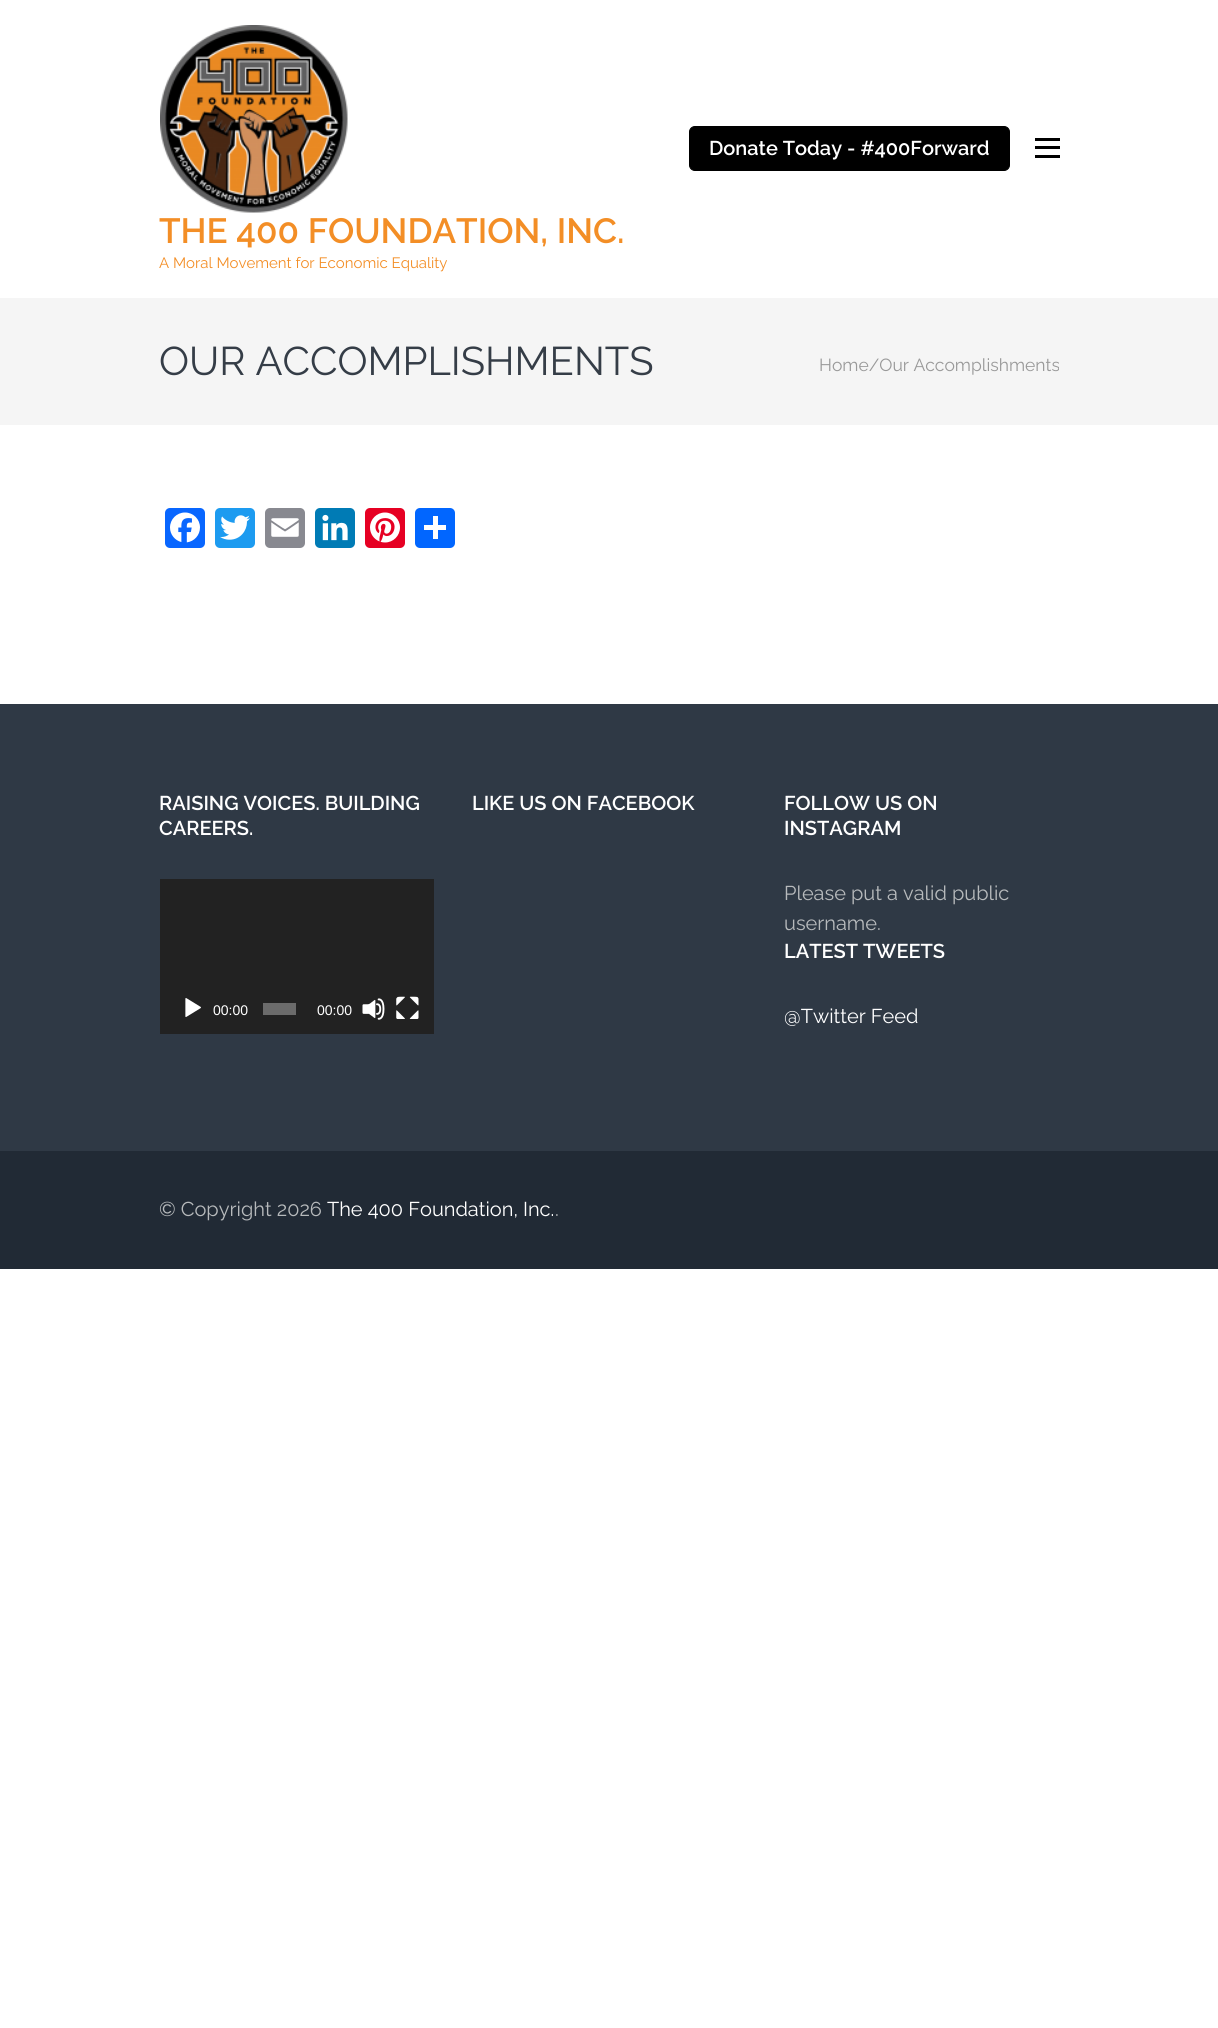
import math
import cairo


def use_color(cr, r, g, b):
  cr.set_source_rgb(r / 255, g / 255, b / 255)

def text(cr, x, y, s, family, size, color, bold=False, italic=False):
  cr.select_font_face(family, cairo.FONT_SLANT_ITALIC if italic else cairo.FONT_SLANT_NORMAL, cairo.FONT_WEIGHT_BOLD if bold else cairo.FONT_WEIGHT_NORMAL)
  cr.set_font_size(size)
  use_color(cr, *color)
  cr.move_to(x, y)
  cr.show_text(s)

def box(cr, x, y, w, h, *color):
  use_color(cr, *color)
  cr.rectangle(x, y, w, h)
  cr.fill()

def round_rect(cr, x, y, w, h, r):
  cr.new_sub_path()
  for i, (u, v) in enumerate([(x + w - r, y + h - r), (x + r, y + h - r), (x + r, y + r), (x + w - r, y + r)]):
    cr.arc(u, v, r, i * math.pi / 2, (i + 1) * math.pi / 2)
  cr.close_path()

def picture(cr, path, x, y, w, h):
  cr.save()
  cr.set_source_surface(cairo.ImageSurface.create_from_png(path), x, y)
  cr.rectangle(x, y, w, h)
  cr.fill()
  cr.restore()

def draw(cr):
  use_color(cr, 255, 255, 255)
  cr.paint()
  use_color(cr, 0, 0, 0)
  round_rect(cr, 689.5, 126.5, 320, 44, 5.5)
  cr.fill_preserve()
  cr.set_line_width(1)
  cr.stroke()
  box(cr, 1035, 138, 25, 3, 0, 0, 0)
  box(cr, 1035, 146, 25, 3, 0, 0, 0)
  box(cr, 1035, 155, 25, 3, 0, 0, 0)
  picture(cr, "img_01.png", 160, 25, 188, 188)
  box(cr, 0, 298, 1218, 127, 245, 245, 245)
  use_color(cr, 8, 102, 255)
  round_rect(cr, 165, 508, 40, 40, 5)
  cr.fill()
  picture(cr, "img_02.png", 170, 512, 30, 31)
  use_color(cr, 29, 155, 240)
  round_rect(cr, 215, 508, 40, 40, 5)
  cr.fill()
  picture(cr, "img_03.png", 220, 515, 30, 25)
  use_color(cr, 136, 137, 144)
  round_rect(cr, 265, 508, 40, 40, 5)
  cr.fill()
  picture(cr, "img_04.png", 271, 518, 28, 19)
  use_color(cr, 0, 123, 181)
  round_rect(cr, 315, 508, 40, 40, 5)
  cr.fill()
  picture(cr, "img_05.png", 322, 514, 26, 27)
  use_color(cr, 230, 0, 35)
  round_rect(cr, 365, 508, 40, 40, 5)
  cr.fill()
  picture(cr, "img_06.png", 370, 512, 30, 31)
  use_color(cr, 1, 102, 255)
  round_rect(cr, 415, 508, 40, 40, 5)
  cr.fill()
  box(cr, 433, 516, 5, 23, 255, 255, 255)
  box(cr, 424, 525, 22, 5, 255, 255, 255)
  box(cr, 0, 704, 1218, 447, 47, 57, 69)
  box(cr, 160, 879, 274, 155, 34, 34, 34)
  picture(cr, "img_07.png", 185, 998, 16, 19)
  box(cr, 263, 1003, 33, 12, 107, 107, 107)
  picture(cr, "img_08.png", 362, 998, 23, 22)
  picture(cr, "img_09.png", 396, 996, 23, 23)
  box(cr, 0, 1151, 1218, 118, 33, 42, 53)
  text(cr, 709, 155, "Donate Today - #400Forward", "Raleway SemiBold", 20, (255, 255, 255))
  text(cr, 159, 243, "THE 400 FOUNDATION, INC.", "Raleway SemiBold", 35, (243, 142, 38))
  text(cr, 159, 268, "A Moral Movement for Economic Equality", "Raleway", 15, (243, 142, 38))
  text(cr, 159, 375, "OUR ACCOMPLISHMENTS", "Raleway", 40, (53, 61, 71))
  text(cr, 819, 371, "Home/Our Accomplishments", "Raleway", 17.5, (153, 153, 153))
  text(cr, 159, 810, "RAISING VOICES. BUILDING", "Raleway SemiBold", 20, (255, 255, 255))
  text(cr, 159, 835, "CAREERS.", "Raleway SemiBold", 20, (255, 255, 255))
  text(cr, 213, 1015, "00:00", "Liberation Sans", 14, (255, 255, 255))
  text(cr, 317, 1015, "00:00", "Liberation Sans", 14, (255, 255, 255))
  text(cr, 472, 810, "LIKE US ON FACEBOOK", "Raleway SemiBold", 20, (255, 255, 255))
  text(cr, 784, 810, "FOLLOW US ON", "Raleway SemiBold", 20, (255, 255, 255))
  text(cr, 784, 835, "INSTAGRAM", "Raleway SemiBold", 20, (255, 255, 255))
  text(cr, 784, 900, "Please put a valid public", "Raleway", 20, (183, 186, 188))
  text(cr, 784, 930, "username.", "Raleway", 20, (183, 186, 188))
  text(cr, 784, 958, "LATEST TWEETS", "Raleway SemiBold", 20, (255, 255, 255))
  text(cr, 784, 1023, "@Twitter Feed", "Raleway", 20, (255, 255, 255))
  text(cr, 159, 1216, "© Copyright 2026", "Raleway", 20, (183, 186, 188))
  text(cr, 327, 1216, "The 400 Foundation, Inc.", "Raleway", 20, (255, 255, 255))
  text(cr, 555, 1216, ".", "Raleway", 20, (183, 186, 188))


surface = cairo.ImageSurface(cairo.FORMAT_RGB24, 1218, 2028)
cr = cairo.Context(surface)
options = cairo.FontOptions()
options.set_hint_metrics(cairo.HINT_METRICS_OFF)
options.set_hint_style(cairo.HINT_STYLE_NONE)
cr.set_font_options(options)
cr.set_miter_limit(4)
draw(cr)
surface.write_to_png("out.png")
